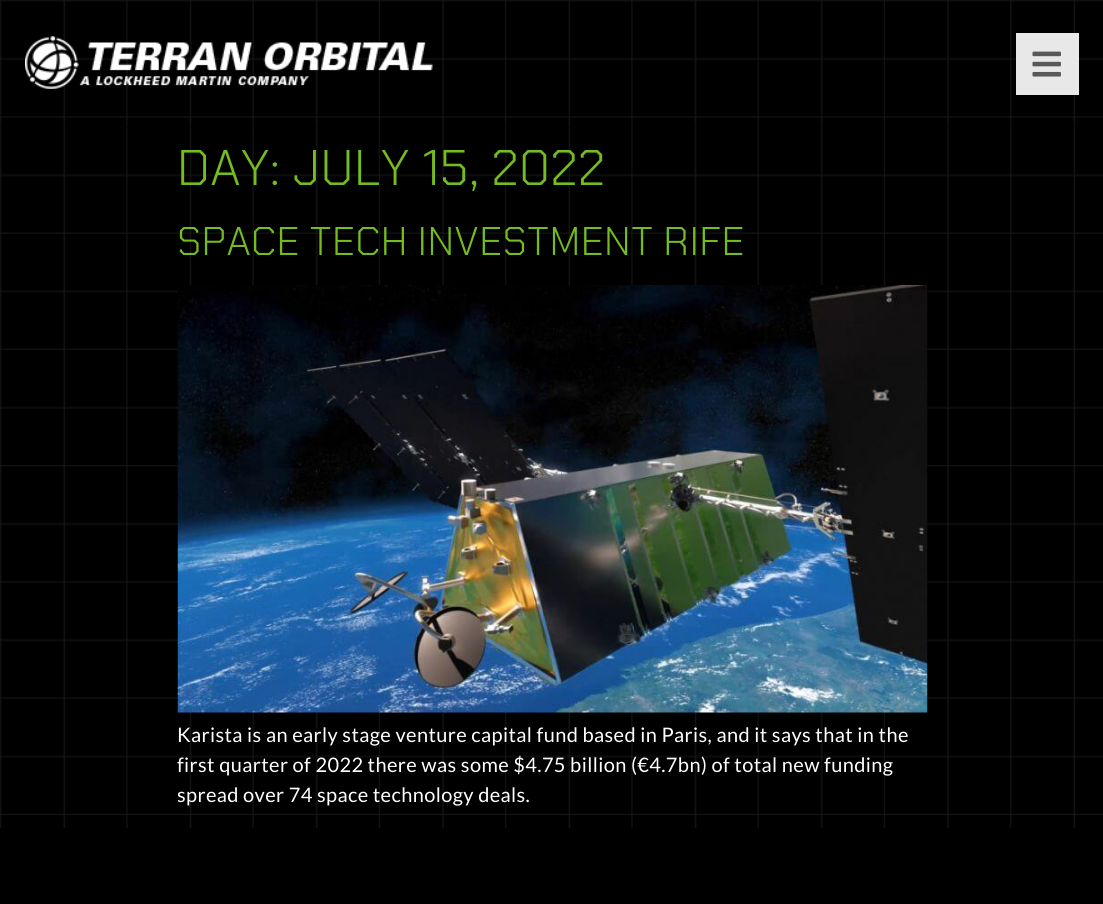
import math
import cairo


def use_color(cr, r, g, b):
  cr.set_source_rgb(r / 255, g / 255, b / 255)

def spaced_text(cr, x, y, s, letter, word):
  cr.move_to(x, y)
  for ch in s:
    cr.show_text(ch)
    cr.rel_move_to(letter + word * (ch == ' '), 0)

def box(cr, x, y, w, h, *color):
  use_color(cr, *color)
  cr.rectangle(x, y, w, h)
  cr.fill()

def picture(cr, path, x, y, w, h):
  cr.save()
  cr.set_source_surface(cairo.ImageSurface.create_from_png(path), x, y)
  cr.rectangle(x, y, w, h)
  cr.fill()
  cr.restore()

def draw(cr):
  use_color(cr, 0, 0, 0)
  cr.paint()
  picture(cr, "img_01.png", 0, 128, 1103, 700)
  picture(cr, "img_02.png", 0, 0, 1103, 128)
  picture(cr, "img_03.png", 25, 36, 408, 53)
  box(cr, 1016, 33, 63, 62, 232, 232, 232)
  picture(cr, "img_04.png", 1032, 51, 29, 26)
  picture(cr, "img_05.png", 177, 285, 751, 428)
  cr.select_font_face("Chakra Petch Light")
  cr.set_font_size(50)
  use_color(cr, 116, 188, 31)
  spaced_text(cr, 177, 185, "DAY: JULY 15, 2022", 0.38, 0)
  cr.set_font_size(40)
  spaced_text(cr, 177, 255, "SPACE TECH INVESTMENT RIFE", 0.38, 0)
  cr.select_font_face("Lato")
  cr.set_font_size(20)
  use_color(cr, 255, 255, 255)
  spaced_text(cr, 177, 742, "Karista is an early stage venture capital fund based in Paris, and it says that in the", 0.38, 0)
  spaced_text(cr, 177, 772, "first quarter of 2022 there was some $4.75 billion (€4.7bn) of total new funding", 0.38, 0)
  cr.save()
  cr.rectangle(178, 128, 750, 700)
  cr.clip()
  spaced_text(cr, 177, 802, "spread over 74 space technology deals.", 0.38, 0)
  cr.restore()


surface = cairo.ImageSurface(cairo.FORMAT_RGB24, 1103, 904)
cr = cairo.Context(surface)
options = cairo.FontOptions()
options.set_hint_metrics(cairo.HINT_METRICS_OFF)
options.set_hint_style(cairo.HINT_STYLE_NONE)
cr.set_font_options(options)
cr.set_miter_limit(4)
draw(cr)
surface.write_to_png("out.png")
